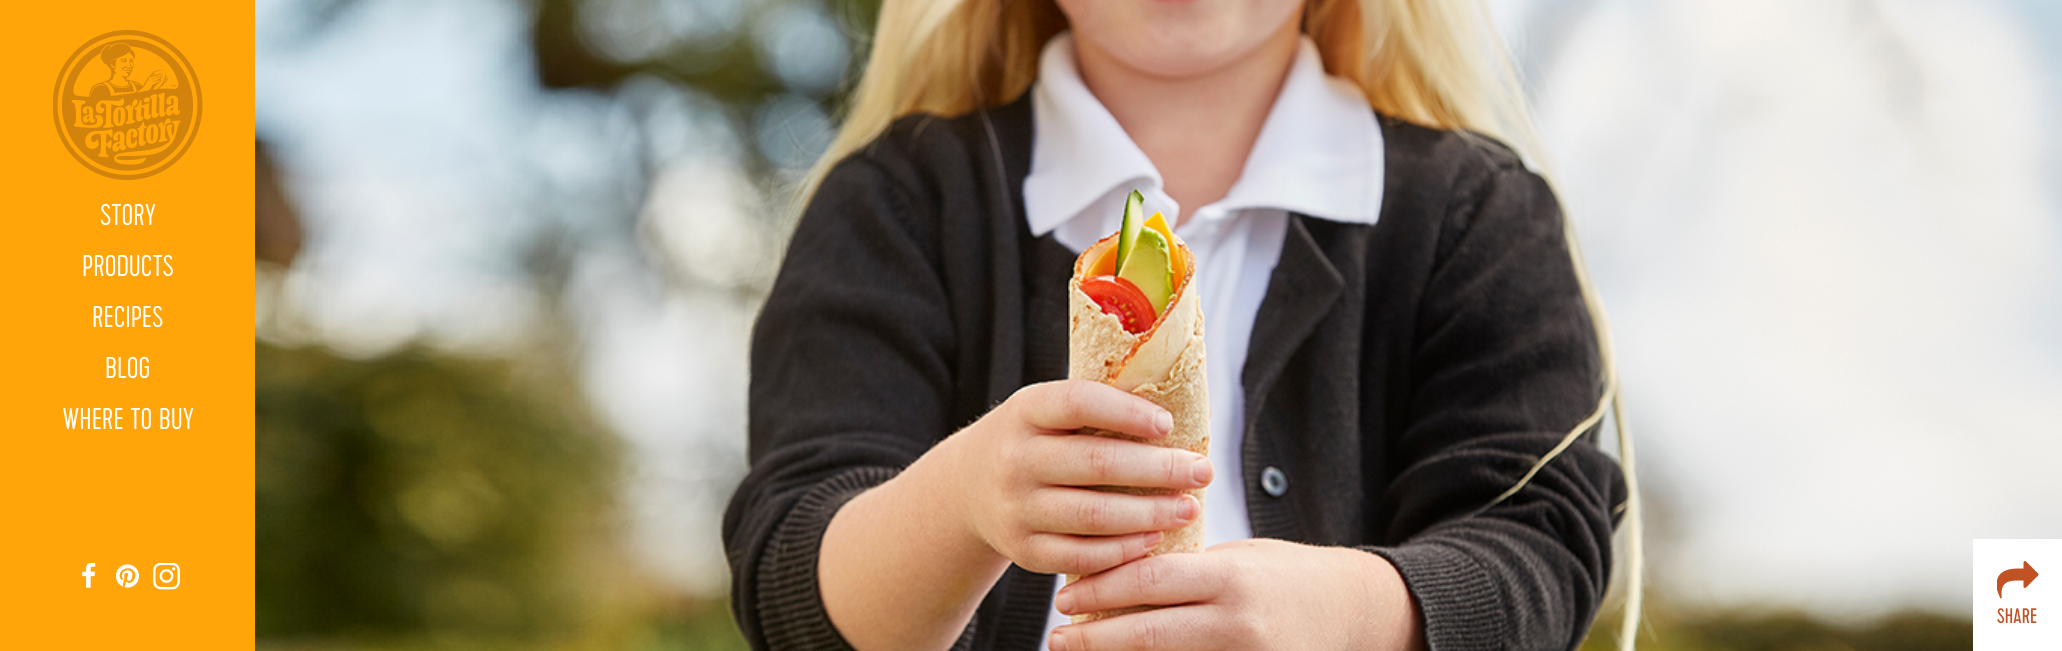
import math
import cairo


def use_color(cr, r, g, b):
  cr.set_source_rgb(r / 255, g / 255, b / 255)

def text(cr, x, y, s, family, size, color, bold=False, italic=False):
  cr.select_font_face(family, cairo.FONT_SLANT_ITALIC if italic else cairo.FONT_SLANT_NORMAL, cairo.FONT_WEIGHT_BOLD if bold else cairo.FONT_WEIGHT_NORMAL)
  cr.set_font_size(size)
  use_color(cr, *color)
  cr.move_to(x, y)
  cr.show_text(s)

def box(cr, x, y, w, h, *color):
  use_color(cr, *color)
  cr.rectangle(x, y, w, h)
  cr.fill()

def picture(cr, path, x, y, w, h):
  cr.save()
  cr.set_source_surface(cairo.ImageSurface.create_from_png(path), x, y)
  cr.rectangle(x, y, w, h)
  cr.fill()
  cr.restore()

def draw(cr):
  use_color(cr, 255, 255, 255)
  cr.paint()
  box(cr, 0, 0, 255, 651, 255, 164, 9)
  picture(cr, "img_01.png", 53, 30, 150, 150)
  picture(cr, "img_02.png", 82, 563, 14, 25)
  picture(cr, "img_03.png", 115, 564, 25, 24)
  picture(cr, "img_04.png", 153, 563, 27, 27)
  picture(cr, "img_05.png", 255, 0, 1807, 651)
  box(cr, 1973, 539, 89, 112, 255, 255, 255)
  picture(cr, "img_06.png", 1997, 561, 42, 38)
  text(cr, 100, 225, "STORY", "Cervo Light", 30, (255, 255, 255))
  text(cr, 82, 276, "PRODUCTS", "Cervo Light", 30, (255, 255, 255))
  text(cr, 92, 327, "RECIPES", "Cervo Light", 30, (255, 255, 255))
  text(cr, 105, 378, "BLOG", "Cervo Light", 30, (255, 255, 255))
  text(cr, 62, 429, "WHERE TO BUY", "Cervo Light", 30, (255, 255, 255))
  text(cr, 1997, 623, "SHARE", "Cervo", 21, (193, 82, 36))


surface = cairo.ImageSurface(cairo.FORMAT_RGB24, 2062, 651)
cr = cairo.Context(surface)
options = cairo.FontOptions()
options.set_hint_metrics(cairo.HINT_METRICS_OFF)
options.set_hint_style(cairo.HINT_STYLE_NONE)
cr.set_font_options(options)
cr.set_miter_limit(4)
draw(cr)
surface.write_to_png("out.png")
